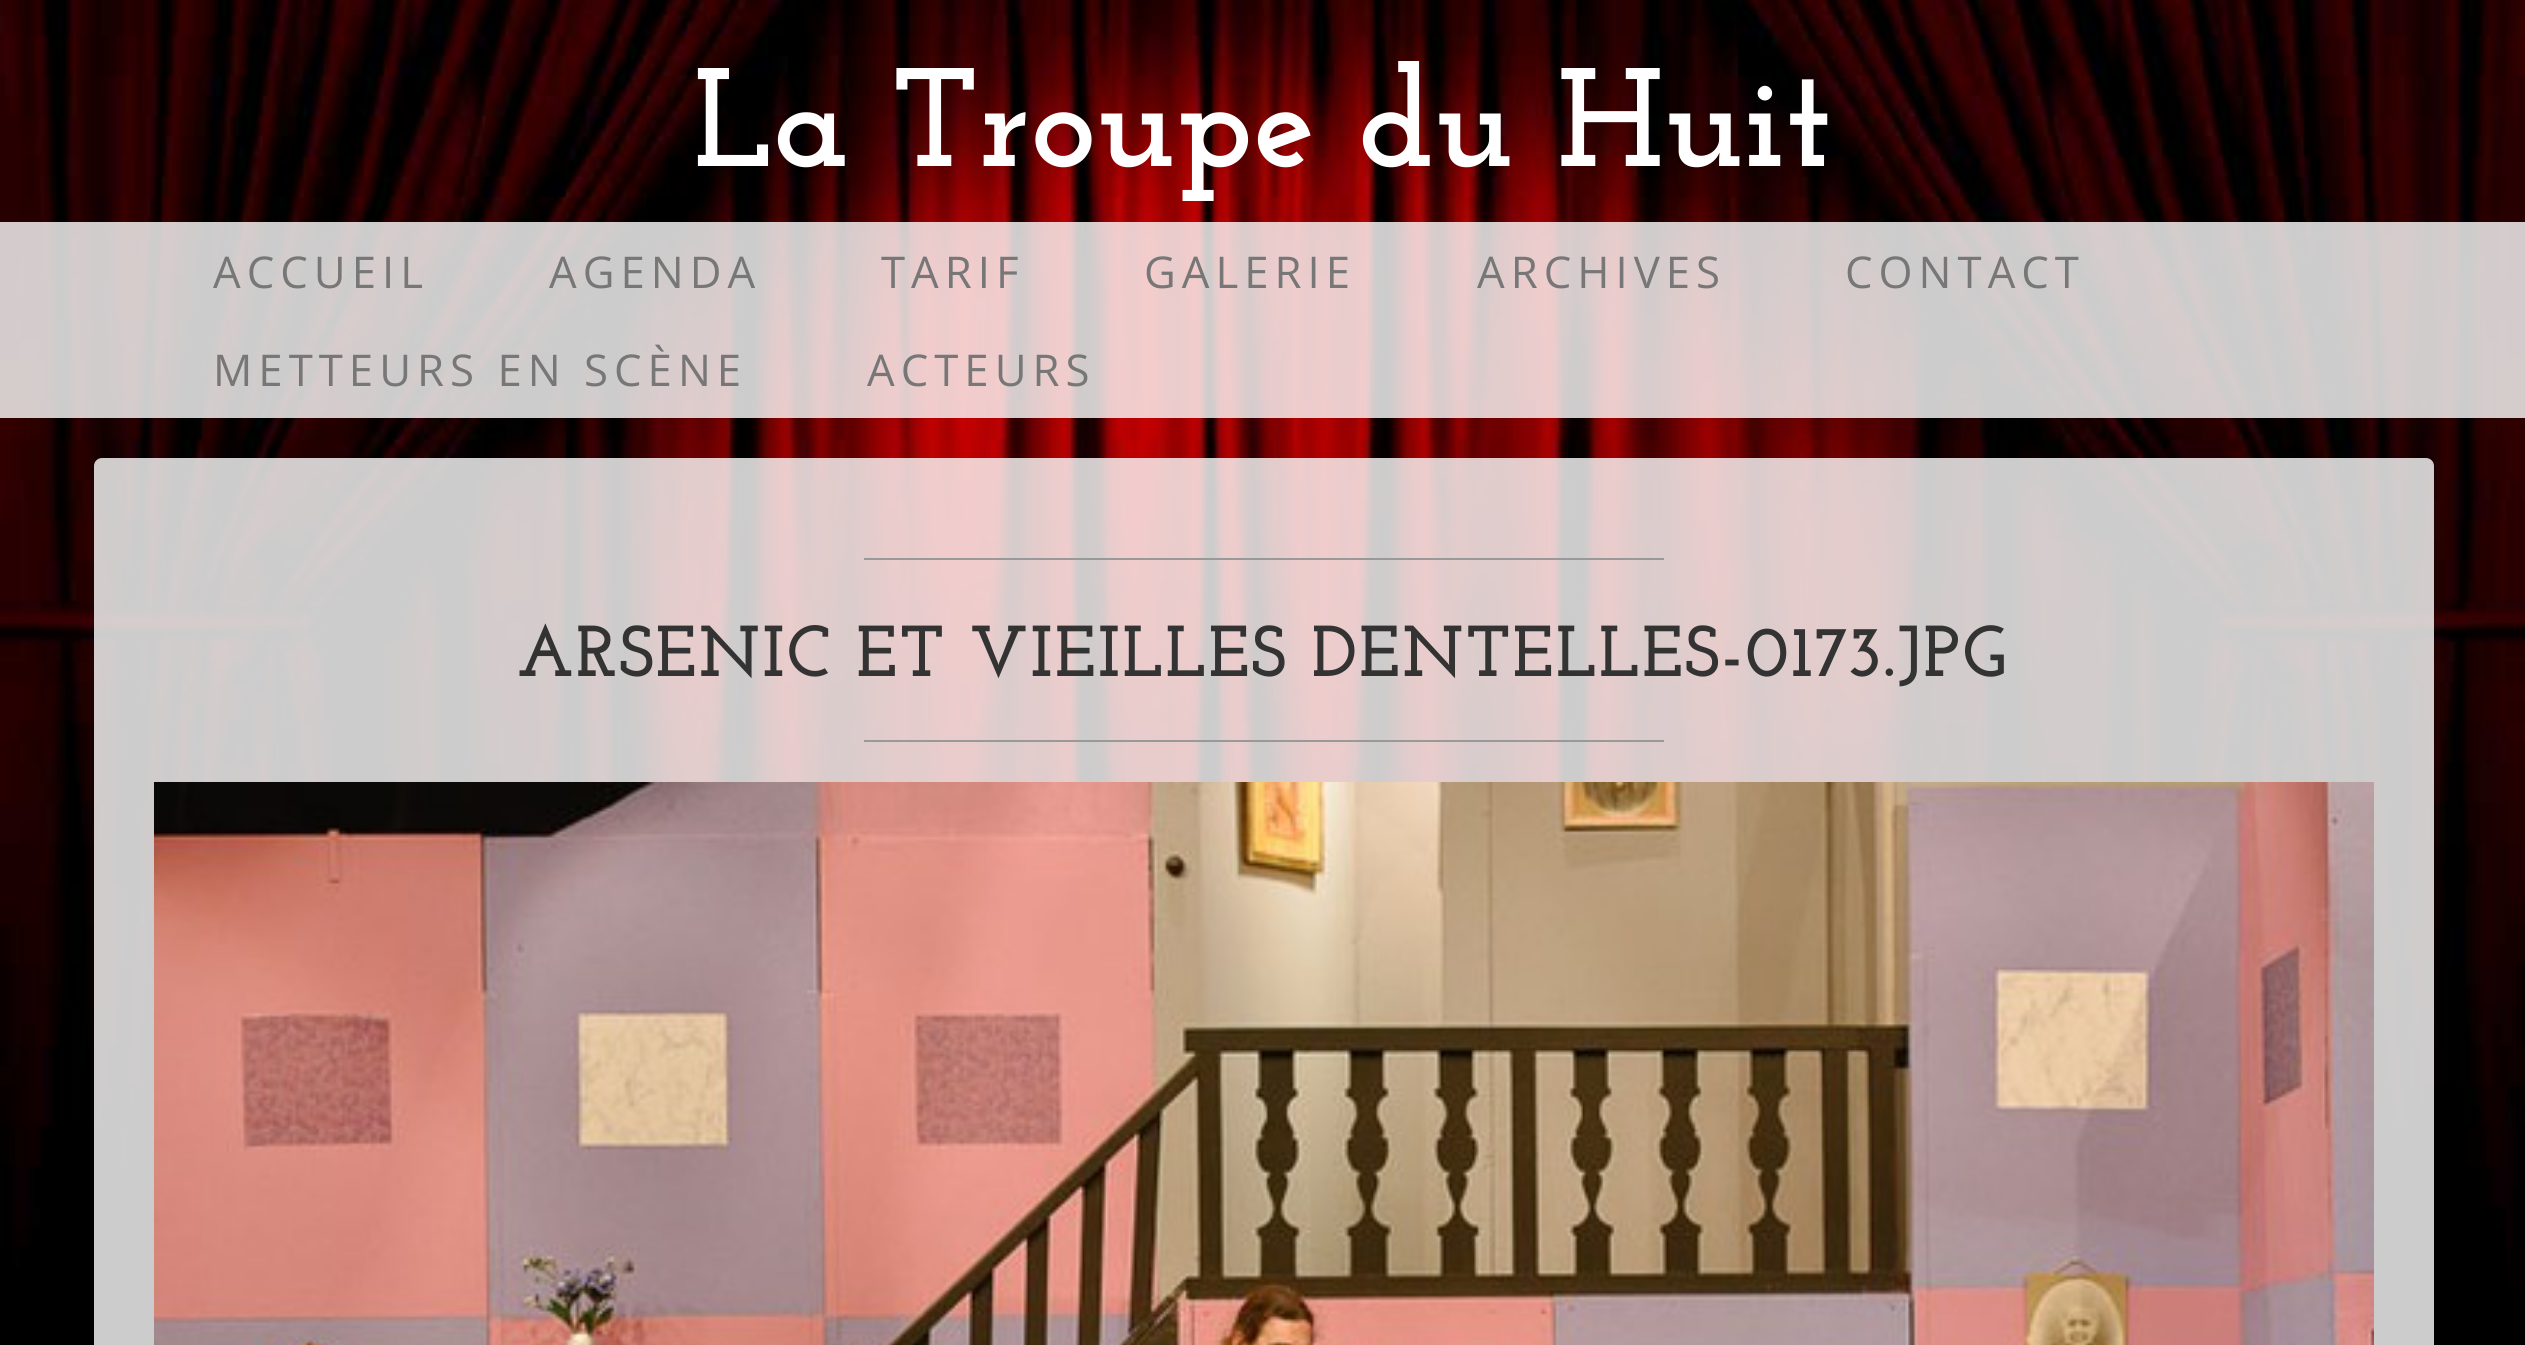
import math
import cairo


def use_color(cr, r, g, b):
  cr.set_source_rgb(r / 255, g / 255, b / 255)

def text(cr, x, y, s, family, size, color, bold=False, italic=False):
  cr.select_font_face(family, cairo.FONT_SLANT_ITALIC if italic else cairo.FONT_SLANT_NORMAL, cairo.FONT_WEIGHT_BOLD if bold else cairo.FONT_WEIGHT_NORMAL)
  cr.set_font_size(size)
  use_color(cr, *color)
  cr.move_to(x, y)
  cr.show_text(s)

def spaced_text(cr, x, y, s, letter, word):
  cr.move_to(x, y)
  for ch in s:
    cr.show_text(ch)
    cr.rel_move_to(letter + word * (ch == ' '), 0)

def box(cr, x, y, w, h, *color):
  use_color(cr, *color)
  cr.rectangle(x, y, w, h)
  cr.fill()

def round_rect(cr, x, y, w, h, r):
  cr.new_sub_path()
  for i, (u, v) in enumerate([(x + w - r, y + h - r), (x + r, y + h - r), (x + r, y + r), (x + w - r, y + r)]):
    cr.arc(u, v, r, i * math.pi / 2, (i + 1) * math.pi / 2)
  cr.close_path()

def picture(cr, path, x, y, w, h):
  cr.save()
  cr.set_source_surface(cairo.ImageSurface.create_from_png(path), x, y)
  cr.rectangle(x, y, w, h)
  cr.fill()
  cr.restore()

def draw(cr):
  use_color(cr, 255, 255, 255)
  cr.paint()
  picture(cr, "img_01.png", 0, 0, 2525, 1345)
  cr.set_source_rgba(1, 1, 1, 0.8)
  cr.rectangle(0, 222, 2525, 196)
  cr.fill()
  round_rect(cr, 94, 458, 2340, 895, 8)
  cr.fill()
  box(cr, 864, 558, 800, 2, 153, 153, 153)
  box(cr, 864, 740, 800, 2, 153, 153, 153)
  picture(cr, "img_02.png", 154, 782, 2220, 563)
  text(cr, 693, 166, "La Troupe du Huit", "Josefin Slab", 140, (255, 255, 255), bold=True)
  cr.select_font_face("Open Sans")
  cr.set_font_size(43.75)
  use_color(cr, 119, 119, 119)
  spaced_text(cr, 213, 288, "ACCUEIL", 6, 0)
  spaced_text(cr, 549, 288, "AGENDA", 6, 0)
  spaced_text(cr, 881, 288, "TARIF", 6, 0)
  spaced_text(cr, 1144, 288, "GALERIE", 6, 0)
  spaced_text(cr, 1477, 288, "ARCHIVES", 6, 0)
  spaced_text(cr, 1845, 288, "CONTACT", 6, 0)
  spaced_text(cr, 213, 386, "METTEURS EN SCÈNE", 6, 0)
  spaced_text(cr, 867, 386, "ACTEURS", 6, 0)
  cr.select_font_face("Josefin Slab", cairo.FONT_SLANT_NORMAL, cairo.FONT_WEIGHT_BOLD)
  cr.set_font_size(72)
  use_color(cr, 51, 51, 51)
  spaced_text(cr, 517, 676, "ARSENIC ET VIEILLES DENTELLES-0173.JPG", 2, 0)


surface = cairo.ImageSurface(cairo.FORMAT_RGB24, 2525, 1345)
cr = cairo.Context(surface)
options = cairo.FontOptions()
options.set_hint_metrics(cairo.HINT_METRICS_OFF)
options.set_hint_style(cairo.HINT_STYLE_NONE)
cr.set_font_options(options)
cr.set_miter_limit(4)
draw(cr)
surface.write_to_png("out.png")
